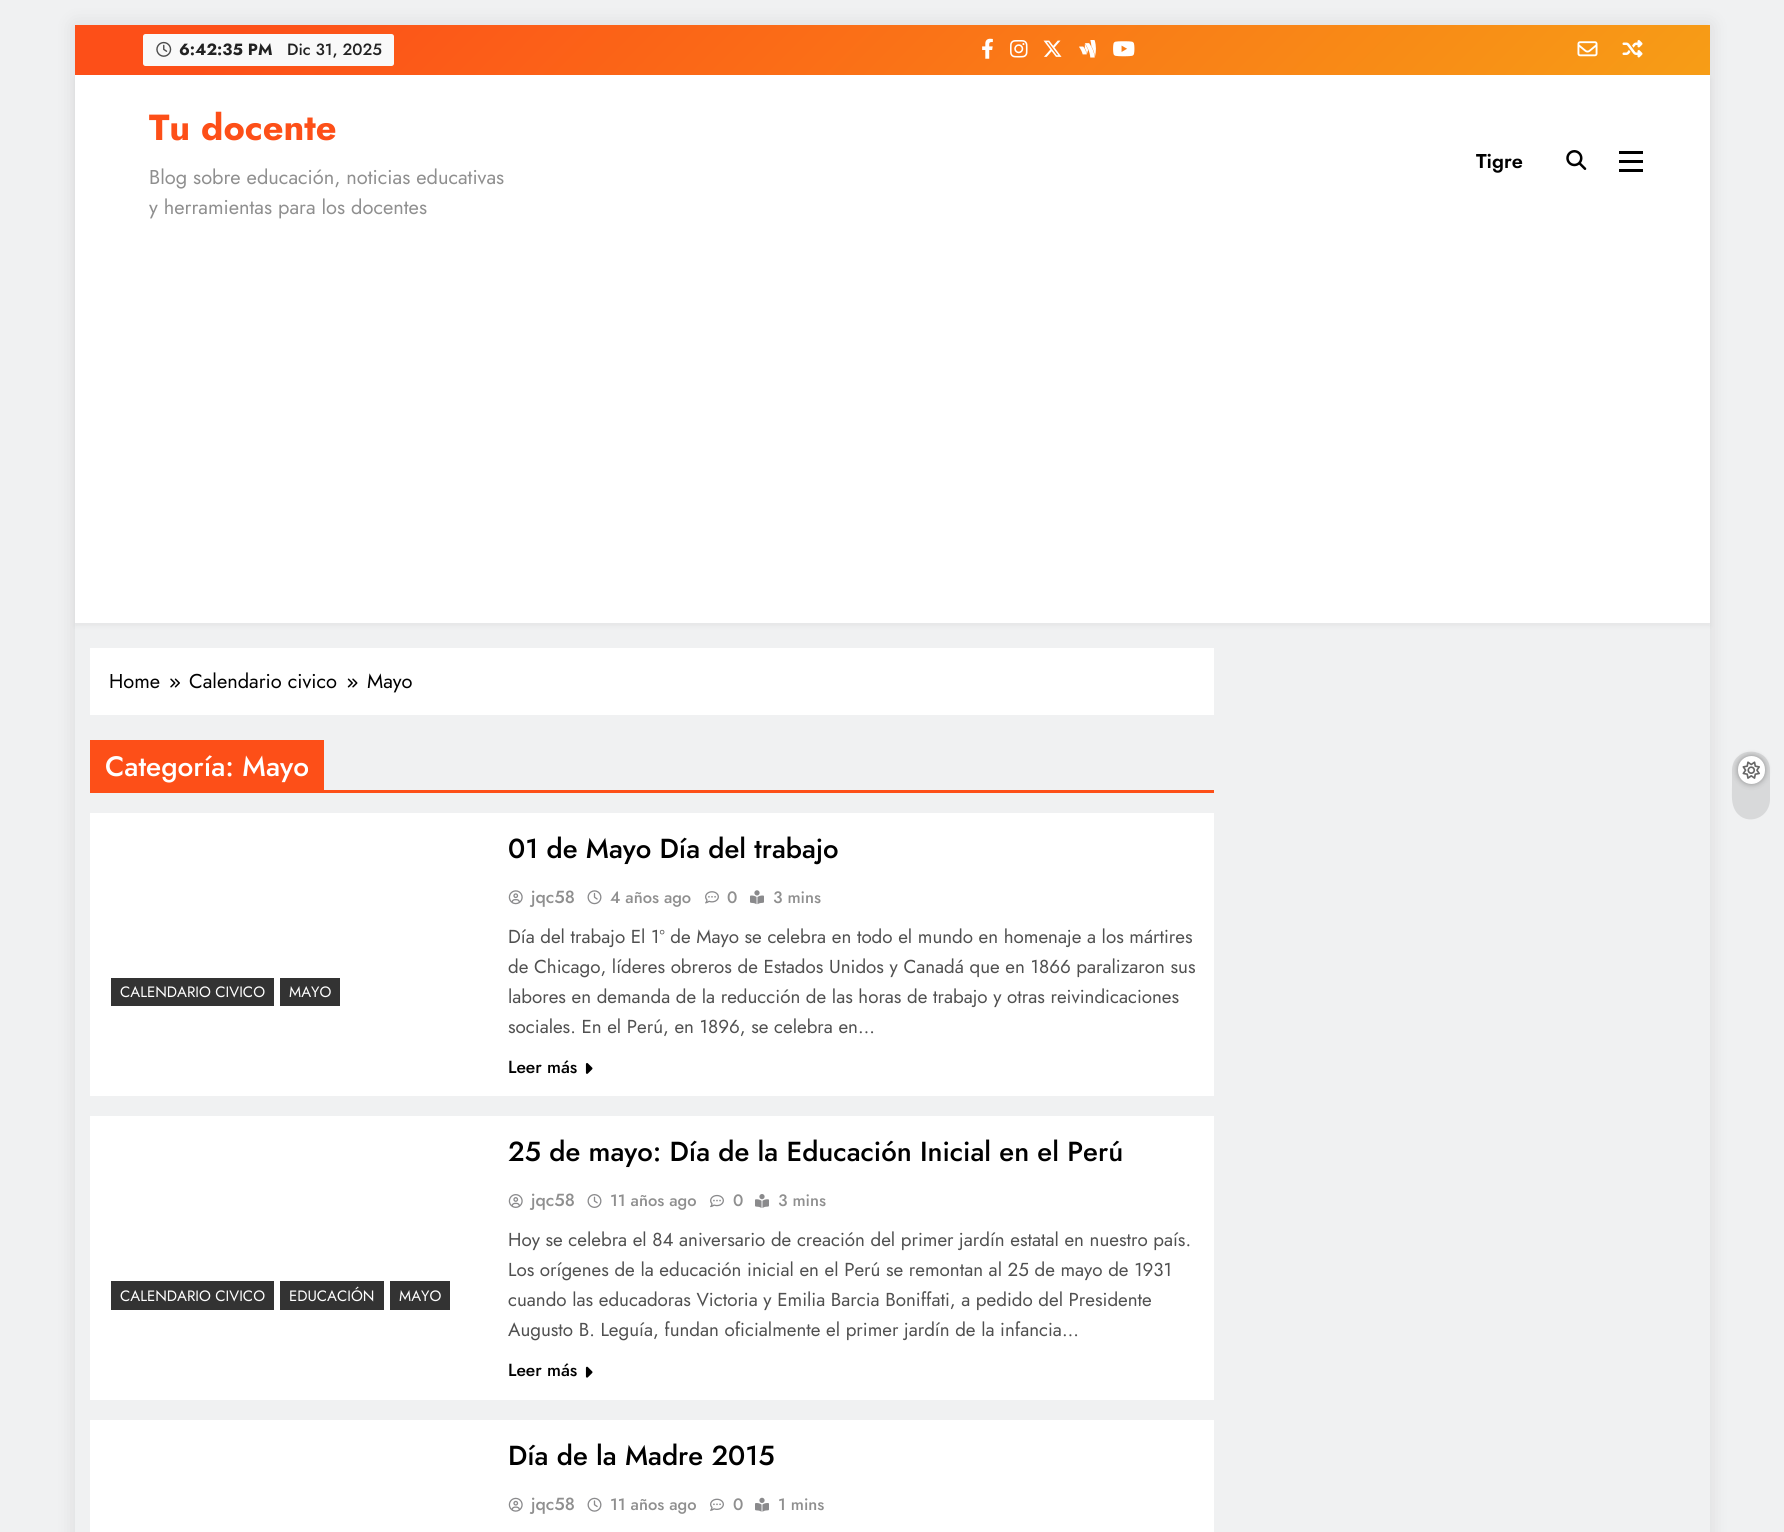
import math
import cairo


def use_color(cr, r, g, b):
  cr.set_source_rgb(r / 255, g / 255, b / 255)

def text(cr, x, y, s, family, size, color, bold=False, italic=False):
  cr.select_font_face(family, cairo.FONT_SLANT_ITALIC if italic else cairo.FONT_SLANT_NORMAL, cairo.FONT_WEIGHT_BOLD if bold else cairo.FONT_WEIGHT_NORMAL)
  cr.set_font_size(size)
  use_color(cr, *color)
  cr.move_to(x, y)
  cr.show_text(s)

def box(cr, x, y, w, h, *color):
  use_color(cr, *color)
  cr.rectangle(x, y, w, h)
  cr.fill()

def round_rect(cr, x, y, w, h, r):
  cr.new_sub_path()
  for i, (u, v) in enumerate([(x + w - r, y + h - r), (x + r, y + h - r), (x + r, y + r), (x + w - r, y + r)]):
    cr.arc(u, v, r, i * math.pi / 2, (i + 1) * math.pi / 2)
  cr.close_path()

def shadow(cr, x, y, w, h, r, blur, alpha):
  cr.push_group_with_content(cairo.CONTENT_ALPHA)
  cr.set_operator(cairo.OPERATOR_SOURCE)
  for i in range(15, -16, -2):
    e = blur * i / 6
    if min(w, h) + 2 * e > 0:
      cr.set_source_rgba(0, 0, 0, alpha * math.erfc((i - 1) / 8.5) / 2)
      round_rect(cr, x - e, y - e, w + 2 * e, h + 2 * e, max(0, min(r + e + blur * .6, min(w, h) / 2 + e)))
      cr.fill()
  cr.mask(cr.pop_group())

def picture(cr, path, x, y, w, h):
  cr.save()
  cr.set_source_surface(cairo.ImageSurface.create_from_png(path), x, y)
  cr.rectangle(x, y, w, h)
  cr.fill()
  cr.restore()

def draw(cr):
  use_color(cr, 240, 241, 242)
  cr.paint()
  cr.save()
  cr.set_fill_rule(cairo.FILL_RULE_EVEN_ODD)
  cr.new_path()
  cr.move_to(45, 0)
  cr.line_to(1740, 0)
  cr.line_to(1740, 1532)
  cr.line_to(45, 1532)
  cr.close_path()
  cr.move_to(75, 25)
  cr.line_to(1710, 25)
  cr.line_to(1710, 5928)
  cr.line_to(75, 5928)
  cr.close_path()
  cr.clip()
  use_color(cr, 0, 0, 0)
  shadow(cr, 75, 25, 1635, 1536, 0, 9.5, 0.1)
  cr.restore()
  gradient = cairo.LinearGradient(471, -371, 1314, 471)
  gradient.add_color_stop_rgba(0.1, 0.992, 0.31, 0.094, 1)
  gradient.add_color_stop_rgba(1, 0.969, 0.616, 0.086, 1)
  cr.set_source(gradient)
  cr.rectangle(75, 25, 1635, 50)
  cr.fill()
  use_color(cr, 249, 249, 249)
  round_rect(cr, 143, 34, 251, 32, 2.5)
  cr.fill()
  picture(cr, "img_01.png", 156, 41, 16, 16)
  picture(cr, "img_02.png", 982, 38, 11, 21)
  picture(cr, "img_03.png", 1010, 40, 18, 18)
  picture(cr, "img_04.png", 1043, 40, 19, 17)
  picture(cr, "img_05.png", 1079, 40, 17, 18)
  picture(cr, "img_06.png", 1113, 41, 22, 16)
  picture(cr, "img_07.png", 1577, 41, 21, 16)
  picture(cr, "img_08.png", 1622, 40, 21, 18)
  use_color(cr, 0, 0, 0)
  shadow(cr, 75, 79, 1635, 547, 0, 2.5, 0.05)
  box(cr, 75, 75, 1635, 548, 255, 255, 255)
  picture(cr, "img_09.png", 1566, 150, 21, 20)
  box(cr, 1619, 151, 24, 3, 0, 0, 0)
  box(cr, 1619, 160, 24, 3, 0, 0, 0)
  box(cr, 1619, 169, 24, 3, 0, 0, 0)
  use_color(cr, 216, 217, 218)
  cr.new_path()
  cr.move_to(1770, 770)
  cr.line_to(1770, 800)
  cr.curve_to(1769, 821, 1742, 827, 1734, 808)
  cr.curve_to(1731, 801, 1732, 792, 1732, 785)
  cr.line_to(1732, 770)
  cr.curve_to(1733, 745, 1770, 746, 1770, 770)
  cr.close_path()
  cr.fill()
  use_color(cr, 0, 0, 0)
  shadow(cr, 1738, 756, 27, 28, 13.5, 3, 0.35)
  use_color(cr, 255, 255, 255)
  round_rect(cr, 1738, 756, 27, 28, 13.5)
  cr.fill()
  picture(cr, "img_10.png", 1742, 761, 18, 18)
  box(cr, 90, 648, 1124, 67, 255, 255, 255)
  picture(cr, "img_11.png", 170, 678, 10, 10)
  picture(cr, "img_12.png", 347, 678, 11, 10)
  box(cr, 324, 790, 890, 3, 253, 79, 24)
  box(cr, 90, 740, 234, 53, 253, 79, 24)
  box(cr, 90, 813, 1124, 283, 255, 255, 255)
  box(cr, 111, 978, 163, 28, 51, 51, 51)
  box(cr, 280, 978, 60, 28, 51, 51, 51)
  picture(cr, "img_13.png", 508, 890, 15, 15)
  picture(cr, "img_14.png", 587, 890, 15, 15)
  picture(cr, "img_15.png", 705, 891, 14, 13)
  picture(cr, "img_16.png", 750, 890, 14, 15)
  picture(cr, "img_17.png", 585, 1063, 8, 11)
  box(cr, 90, 1116, 1124, 284, 255, 255, 255)
  box(cr, 111, 1281, 163, 29, 51, 51, 51)
  box(cr, 280, 1281, 104, 29, 51, 51, 51)
  box(cr, 390, 1281, 60, 29, 51, 51, 51)
  picture(cr, "img_18.png", 508, 1194, 15, 14)
  picture(cr, "img_19.png", 587, 1194, 15, 14)
  picture(cr, "img_20.png", 710, 1194, 14, 14)
  picture(cr, "img_21.png", 755, 1194, 14, 14)
  picture(cr, "img_22.png", 585, 1366, 8, 12)
  box(cr, 90, 1420, 1124, 112, 255, 255, 255)
  picture(cr, "img_23.png", 508, 1497, 15, 15)
  picture(cr, "img_24.png", 587, 1497, 15, 15)
  picture(cr, "img_25.png", 710, 1498, 14, 13)
  picture(cr, "img_26.png", 755, 1497, 14, 15)
  text(cr, 179, 55, "6:42:35 PM", "Jost", 16.25, (34, 34, 34), bold=True)
  text(cr, 287, 55, "Dic 31, 2025", "Jost Medium", 16.25, (34, 34, 34))
  text(cr, 149, 140, "Tu docente", "Jost", 36.25, (253, 79, 24), bold=True)
  text(cr, 149, 184, "Blog sobre educación, noticias educativas", "Jost", 20, (143, 143, 143))
  text(cr, 149, 214, "y herramientas para los docentes", "Jost", 20, (143, 143, 143))
  text(cr, 1476, 168, "Tigre", "Jost SemiBold", 20, (0, 0, 0))
  text(cr, 109, 688, "Home", "Jost", 20, (0, 0, 0))
  text(cr, 189, 688, "Calendario civico", "Jost", 20, (0, 0, 0))
  text(cr, 367, 688, "Mayo", "Jost", 20, (0, 0, 0))
  text(cr, 105, 776, "Categoría: Mayo", "Jost Medium", 28, (255, 255, 255))
  text(cr, 120, 997, "CALENDARIO CIVICO", "Jost", 15, (255, 255, 255))
  text(cr, 289, 997, "MAYO", "Jost", 15, (255, 255, 255))
  text(cr, 508, 858, "01 de Mayo Día del trabajo", "Jost Medium", 27.5, (0, 0, 0))
  text(cr, 531, 903, "jqc58", "Jost Medium", 17.5, (143, 143, 143))
  text(cr, 610, 903, "4 años ago", "Jost Medium", 16.5, (143, 143, 143))
  text(cr, 727, 903, "0", "Jost Medium", 16.5, (143, 143, 143))
  text(cr, 773, 903, "3 mins", "Jost Medium", 16.5, (143, 143, 143))
  text(cr, 508, 943, "Día del trabajo El 1º de Mayo se celebra en todo el mundo en homenaje a los mártires", "Jost", 18.75, (80, 80, 80))
  text(cr, 508, 973, "de Chicago, líderes obreros de Estados Unidos y Canadá que en 1866 paralizaron sus", "Jost", 18.75, (80, 80, 80))
  text(cr, 508, 1003, "labores en demanda de la reducción de las horas de trabajo y otras reivindicaciones", "Jost", 18.75, (80, 80, 80))
  text(cr, 508, 1033, "sociales. En el Perú, en 1896, se celebra en…", "Jost", 18.75, (80, 80, 80))
  text(cr, 508, 1073, "Leer más", "Jost Medium", 17.5, (0, 0, 0))
  text(cr, 120, 1301, "CALENDARIO CIVICO", "Jost", 15, (255, 255, 255))
  text(cr, 289, 1301, "EDUCACIÓN", "Jost", 15, (255, 255, 255))
  text(cr, 399, 1301, "MAYO", "Jost", 15, (255, 255, 255))
  text(cr, 508, 1161, "25 de mayo: Día de la Educación Inicial en el Perú", "Jost Medium", 27.5, (0, 0, 0))
  text(cr, 531, 1206, "jqc58", "Jost Medium", 17.5, (143, 143, 143))
  text(cr, 610, 1206, "11 años ago", "Jost Medium", 16.5, (143, 143, 143))
  text(cr, 733, 1206, "0", "Jost Medium", 16.5, (143, 143, 143))
  text(cr, 778, 1206, "3 mins", "Jost Medium", 16.5, (143, 143, 143))
  text(cr, 508, 1246, "Hoy se celebra el 84 aniversario de creación del primer jardín estatal en nuestro país.", "Jost", 18.75, (80, 80, 80))
  text(cr, 508, 1276, "Los orígenes de la educación inicial en el Perú se remontan al 25 de mayo de 1931", "Jost", 18.75, (80, 80, 80))
  text(cr, 508, 1306, "cuando las educadoras Victoria y Emilia Barcia Boniffati, a pedido del Presidente", "Jost", 18.75, (80, 80, 80))
  text(cr, 508, 1336, "Augusto B. Leguía, fundan oficialmente el primer jardín de la infancia…", "Jost", 18.75, (80, 80, 80))
  text(cr, 508, 1376, "Leer más", "Jost Medium", 17.5, (0, 0, 0))
  text(cr, 508, 1465, "Día de la Madre 2015", "Jost Medium", 27.5, (0, 0, 0))
  text(cr, 531, 1510, "jqc58", "Jost Medium", 17.5, (143, 143, 143))
  text(cr, 610, 1510, "11 años ago", "Jost Medium", 16.5, (143, 143, 143))
  text(cr, 733, 1510, "0", "Jost Medium", 16.5, (143, 143, 143))
  text(cr, 778, 1510, "1 mins", "Jost Medium", 16.5, (143, 143, 143))


surface = cairo.ImageSurface(cairo.FORMAT_RGB24, 1784, 1532)
cr = cairo.Context(surface)
options = cairo.FontOptions()
options.set_hint_metrics(cairo.HINT_METRICS_OFF)
options.set_hint_style(cairo.HINT_STYLE_NONE)
cr.set_font_options(options)
cr.set_miter_limit(4)
draw(cr)
surface.write_to_png("out.png")
